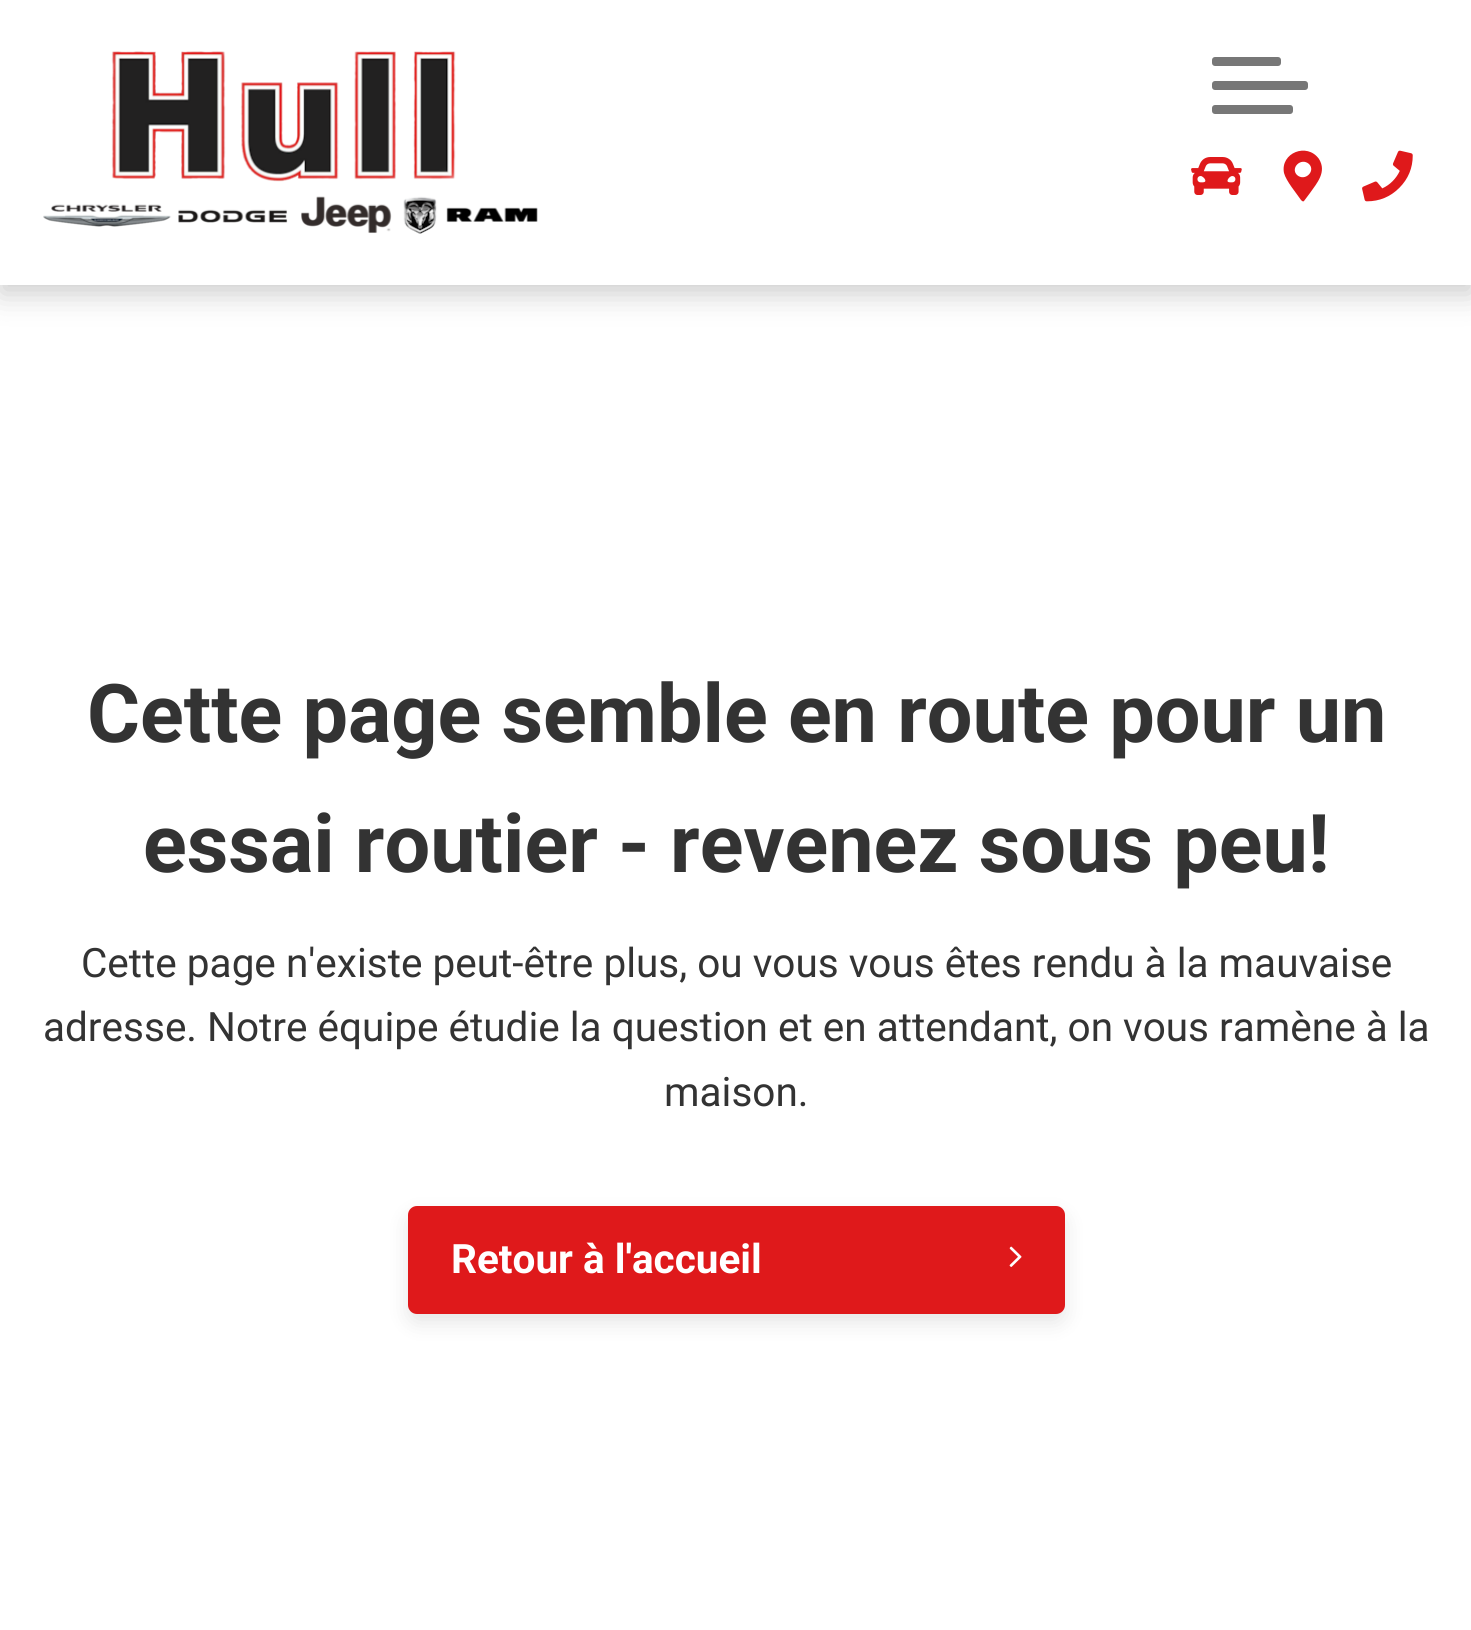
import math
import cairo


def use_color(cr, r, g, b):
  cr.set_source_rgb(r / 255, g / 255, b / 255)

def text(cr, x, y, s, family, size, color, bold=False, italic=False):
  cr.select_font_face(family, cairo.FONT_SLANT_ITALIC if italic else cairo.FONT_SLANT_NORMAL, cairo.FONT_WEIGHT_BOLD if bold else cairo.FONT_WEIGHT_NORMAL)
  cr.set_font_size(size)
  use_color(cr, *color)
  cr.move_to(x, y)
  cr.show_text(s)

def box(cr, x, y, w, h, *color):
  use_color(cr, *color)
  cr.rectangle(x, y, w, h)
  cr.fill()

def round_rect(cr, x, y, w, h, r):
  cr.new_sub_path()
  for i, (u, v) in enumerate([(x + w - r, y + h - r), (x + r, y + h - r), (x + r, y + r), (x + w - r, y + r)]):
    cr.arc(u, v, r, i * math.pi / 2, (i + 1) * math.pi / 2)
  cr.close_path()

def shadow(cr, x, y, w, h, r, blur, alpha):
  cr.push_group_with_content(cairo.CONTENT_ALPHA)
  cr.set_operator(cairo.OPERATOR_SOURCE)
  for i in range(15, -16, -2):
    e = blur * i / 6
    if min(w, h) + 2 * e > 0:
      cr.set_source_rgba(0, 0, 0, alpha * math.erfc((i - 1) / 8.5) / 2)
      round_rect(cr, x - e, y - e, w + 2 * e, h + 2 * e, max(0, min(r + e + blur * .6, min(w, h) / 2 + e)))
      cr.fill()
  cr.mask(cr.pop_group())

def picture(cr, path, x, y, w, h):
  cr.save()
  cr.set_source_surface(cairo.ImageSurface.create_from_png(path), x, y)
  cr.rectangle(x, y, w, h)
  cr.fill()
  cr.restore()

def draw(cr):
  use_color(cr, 255, 255, 255)
  cr.paint()
  use_color(cr, 0, 0, 0)
  shadow(cr, 0, 9, 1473, 285, 0, 15, 0.2)
  box(cr, 0, 0, 1471, 285, 255, 255, 255)
  picture(cr, "img_01.png", 43, 51, 495, 183)
  use_color(cr, 119, 119, 119)
  round_rect(cr, 1212, 81, 96, 9, 3)
  cr.fill()
  round_rect(cr, 1212, 57, 69, 9, 3)
  cr.fill()
  round_rect(cr, 1212, 105, 81, 9, 3)
  cr.fill()
  picture(cr, "img_02.png", 1191, 157, 51, 38)
  use_color(cr, 223, 25, 27)
  cr.new_path()
  cr.move_to(1301, 200)
  cr.curve_to(1297, 194, 1286, 181, 1284, 173)
  cr.curve_to(1280, 153, 1307, 142, 1319, 159)
  cr.curve_to(1327, 172, 1317, 183, 1310, 193)
  cr.line_to(1304, 201)
  cr.curve_to(1303, 202, 1302, 201, 1301, 200)
  cr.close_path()
  cr.move_to(1297, 175)
  cr.curve_to(1305, 182, 1316, 171, 1309, 164)
  cr.curve_to(1301, 157, 1290, 168, 1297, 175)
  cr.close_path()
  cr.fill()
  picture(cr, "img_03.png", 1362, 150, 51, 52)
  use_color(cr, 0, 0, 0)
  shadow(cr, 408, 1215, 657, 108, 9, 10, 0.1)
  use_color(cr, 223, 25, 27)
  round_rect(cr, 408, 1206, 657, 108, 9)
  cr.fill()
  picture(cr, "img_04.png", 1009, 1246, 13, 21)
  text(cr, 87, 742, "Cette page semble en route pour un", "Roboto", 81, (51, 51, 51), bold=True)
  text(cr, 143, 872, "essai routier - revenez sous peu!", "Roboto", 81, (51, 51, 51), bold=True)
  text(cr, 81, 977, "Cette page n'existe peut-être plus, ou vous vous êtes rendu à la mauvaise", "Roboto", 40.5, (51, 51, 51))
  text(cr, 43, 1041, "adresse. Notre équipe étudie la question et en attendant, on vous ramène à la", "Roboto", 40.5, (51, 51, 51))
  text(cr, 664, 1106, "maison.", "Roboto", 40.5, (51, 51, 51))
  text(cr, 451, 1273, "Retour à l'accueil", "Roboto", 40.5, (255, 255, 255), bold=True)


surface = cairo.ImageSurface(cairo.FORMAT_RGB24, 1471, 1630)
cr = cairo.Context(surface)
options = cairo.FontOptions()
options.set_hint_metrics(cairo.HINT_METRICS_OFF)
options.set_hint_style(cairo.HINT_STYLE_NONE)
cr.set_font_options(options)
cr.set_miter_limit(4)
draw(cr)
surface.write_to_png("out.png")
